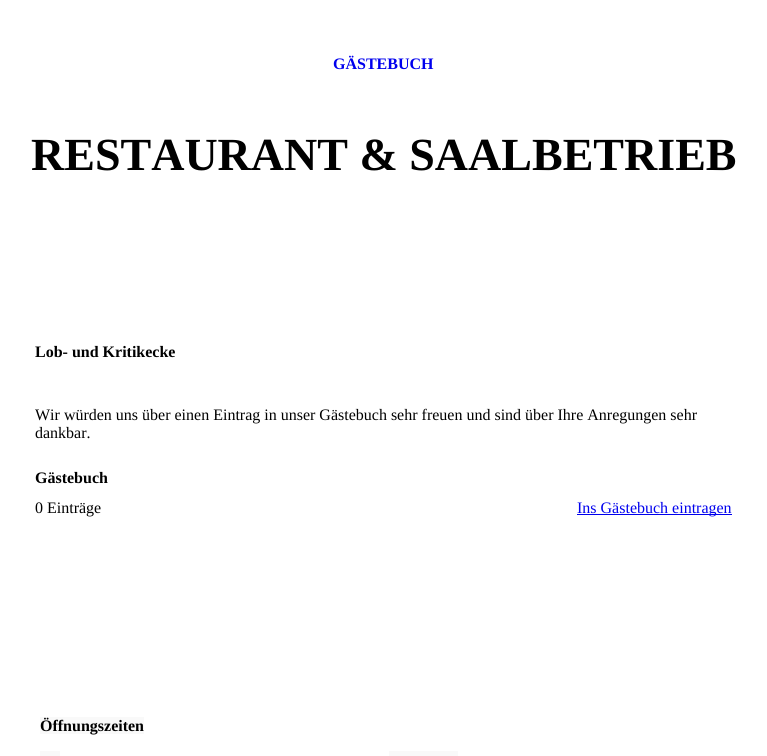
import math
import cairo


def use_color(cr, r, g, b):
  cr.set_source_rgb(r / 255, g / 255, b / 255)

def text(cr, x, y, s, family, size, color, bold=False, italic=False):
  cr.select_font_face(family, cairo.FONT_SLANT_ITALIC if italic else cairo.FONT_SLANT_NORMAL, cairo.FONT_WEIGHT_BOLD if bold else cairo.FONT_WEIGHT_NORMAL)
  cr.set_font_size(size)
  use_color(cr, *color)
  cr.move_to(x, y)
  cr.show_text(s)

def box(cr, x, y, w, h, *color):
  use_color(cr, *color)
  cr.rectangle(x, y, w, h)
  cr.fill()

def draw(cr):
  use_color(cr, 255, 255, 255)
  cr.paint()
  box(cr, 577, 514, 155, 1, 0, 0, 238)
  box(cr, 40, 717, 104, 17, 249, 249, 249)
  box(cr, 40, 751, 20, 5, 249, 249, 249)
  box(cr, 389, 751, 69, 5, 249, 249, 249)
  text(cr, 333, 69, "GÄSTEBUCH", "Liberation Serif", 16, (0, 0, 238), bold=True)
  text(cr, 31, 170, "RESTAURANT & SAALBETRIEB", "Liberation Serif", 46, (0, 0, 0), bold=True)
  text(cr, 35, 357, "Lob- und Kritikecke", "Liberation Serif", 16, (0, 0, 0), bold=True)
  text(cr, 35, 420, "Wir würden uns über einen Eintrag in unser Gästebuch sehr freuen und sind über Ihre Anregungen sehr", "Liberation Serif", 16, (0, 0, 0))
  text(cr, 35, 438, "dankbar.", "Liberation Serif", 16, (0, 0, 0))
  text(cr, 35, 483, "Gästebuch", "Liberation Serif", 16, (0, 0, 0), bold=True)
  text(cr, 35, 513, "0 Einträge", "Liberation Serif", 16, (0, 0, 0))
  text(cr, 577, 513, "Ins Gästebuch eintragen", "Liberation Serif", 16, (0, 0, 238))
  text(cr, 40, 731, "Öffnungszeiten", "Liberation Serif", 16, (0, 0, 0), bold=True)


surface = cairo.ImageSurface(cairo.FORMAT_RGB24, 767, 756)
cr = cairo.Context(surface)
options = cairo.FontOptions()
options.set_hint_metrics(cairo.HINT_METRICS_OFF)
options.set_hint_style(cairo.HINT_STYLE_NONE)
cr.set_font_options(options)
cr.set_miter_limit(4)
draw(cr)
surface.write_to_png("out.png")
